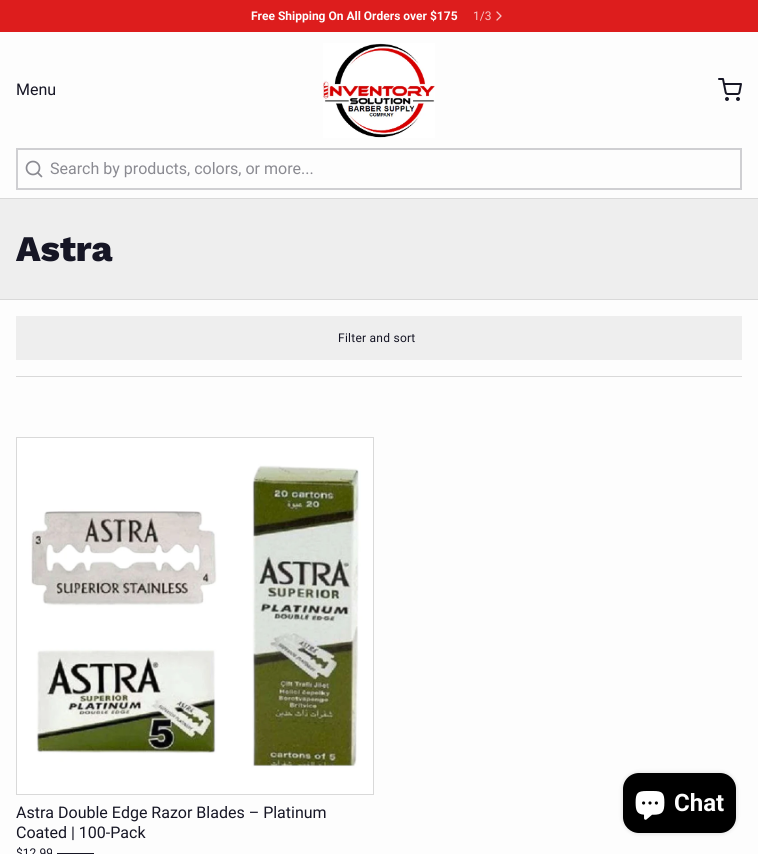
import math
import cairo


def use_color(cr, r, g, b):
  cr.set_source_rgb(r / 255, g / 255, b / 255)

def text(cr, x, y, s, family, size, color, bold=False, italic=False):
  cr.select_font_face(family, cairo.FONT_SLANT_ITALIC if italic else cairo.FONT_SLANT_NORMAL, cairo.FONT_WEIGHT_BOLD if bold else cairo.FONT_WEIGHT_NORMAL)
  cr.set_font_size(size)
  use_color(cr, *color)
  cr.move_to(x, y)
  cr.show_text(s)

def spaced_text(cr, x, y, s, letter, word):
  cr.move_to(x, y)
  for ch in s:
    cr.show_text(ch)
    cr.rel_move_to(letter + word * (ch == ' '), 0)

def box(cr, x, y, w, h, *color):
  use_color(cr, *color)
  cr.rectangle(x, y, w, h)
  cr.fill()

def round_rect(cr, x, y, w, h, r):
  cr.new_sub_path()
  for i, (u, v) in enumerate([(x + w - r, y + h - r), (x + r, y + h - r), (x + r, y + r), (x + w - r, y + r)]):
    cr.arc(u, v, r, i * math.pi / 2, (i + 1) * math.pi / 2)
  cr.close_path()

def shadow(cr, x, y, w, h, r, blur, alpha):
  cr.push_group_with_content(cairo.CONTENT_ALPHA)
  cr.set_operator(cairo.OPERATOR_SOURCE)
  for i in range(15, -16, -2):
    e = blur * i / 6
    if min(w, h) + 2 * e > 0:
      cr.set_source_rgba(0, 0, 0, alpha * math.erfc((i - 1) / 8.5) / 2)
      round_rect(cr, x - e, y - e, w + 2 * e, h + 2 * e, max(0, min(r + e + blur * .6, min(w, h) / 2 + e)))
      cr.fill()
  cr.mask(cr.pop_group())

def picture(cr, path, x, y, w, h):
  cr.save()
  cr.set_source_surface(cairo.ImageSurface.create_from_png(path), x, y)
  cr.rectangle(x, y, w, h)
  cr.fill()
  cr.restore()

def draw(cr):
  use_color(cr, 253, 253, 253)
  cr.paint()
  box(cr, 0, 0, 758, 32, 221, 29, 29)
  cr.new_path()
  cr.move_to(497, 20)
  cr.line_to(501, 16)
  cr.line_to(497, 12)
  use_color(cr, 245, 197, 197)
  cr.set_line_width(1.3)
  cr.set_line_cap(cairo.LINE_CAP_ROUND)
  cr.set_line_join(cairo.LINE_JOIN_ROUND)
  cr.stroke()
  box(cr, 0, 198, 758, 1, 217, 217, 217)
  picture(cr, "img_01.png", 323, 43, 112, 95)
  picture(cr, "img_02.png", 718, 78, 24, 23)
  cr.rectangle(17, 149, 724, 40)
  use_color(cr, 207, 207, 210)
  cr.set_line_width(2)
  cr.set_line_cap(cairo.LINE_CAP_BUTT)
  cr.set_line_join(cairo.LINE_JOIN_MITER)
  cr.stroke()
  cr.arc(33, 168, 6.5, 0, 2 * math.pi)
  use_color(cr, 138, 138, 145)
  cr.set_line_width(1.7)
  cr.stroke()
  cr.new_path()
  cr.move_to(41.5, 176.5)
  cr.line_to(38, 173)
  cr.set_line_cap(cairo.LINE_CAP_ROUND)
  cr.set_line_join(cairo.LINE_JOIN_ROUND)
  cr.stroke()
  box(cr, 0, 199, 758, 100, 238, 238, 238)
  box(cr, 0, 299, 758, 1, 217, 217, 217)
  box(cr, 16, 376, 726, 1, 217, 217, 217)
  box(cr, 16, 316, 726, 44, 238, 238, 238)
  cr.rectangle(16.5, 437.5, 357, 357)
  use_color(cr, 217, 217, 217)
  cr.set_line_width(1)
  cr.set_line_cap(cairo.LINE_CAP_BUTT)
  cr.set_line_join(cairo.LINE_JOIN_MITER)
  cr.stroke()
  picture(cr, "img_03.png", 17, 438, 356, 356)
  box(cr, 57, 853, 37, 1, 22, 22, 37)
  use_color(cr, 0, 0, 0)
  shadow(cr, 623, 773, 113, 60, 16, 2.5, 0.15)
  use_color(cr, 0, 0, 0)
  round_rect(cr, 623, 773, 113, 60, 16)
  cr.fill()
  picture(cr, "img_04.png", 635, 791, 30, 29)
  text(cr, 251, 20, "Free Shipping On All Orders over $175", "Roboto", 12, (253, 253, 253), bold=True)
  text(cr, 473, 20, "1/3", "Roboto", 12, (245, 197, 197))
  text(cr, 16, 95, "Menu", "Roboto", 16, (22, 22, 37))
  text(cr, 50, 174, "Search by products, colors, or more...", "Roboto", 16, (138, 138, 145))
  text(cr, 16, 261, "Astra", "Work Sans ExtraBold", 36, (22, 22, 37))
  cr.select_font_face("Roboto")
  cr.set_font_size(12)
  spaced_text(cr, 338, 342, "Filter and sort", 0.25, 0)
  text(cr, 16, 818, "Astra Double Edge Razor Blades – Platinum", "Roboto", 16, (22, 22, 37))
  text(cr, 16, 838, "Coated | 100-Pack", "Roboto", 16, (22, 22, 37))
  text(cr, 16, 857, "$12.99", "Roboto", 12, (22, 22, 37))
  text(cr, 674, 811, "Chat", "Roboto", 24, (253, 253, 253), bold=True)


surface = cairo.ImageSurface(cairo.FORMAT_RGB24, 758, 854)
cr = cairo.Context(surface)
options = cairo.FontOptions()
options.set_hint_metrics(cairo.HINT_METRICS_OFF)
options.set_hint_style(cairo.HINT_STYLE_NONE)
cr.set_font_options(options)
cr.set_miter_limit(4)
draw(cr)
surface.write_to_png("out.png")
